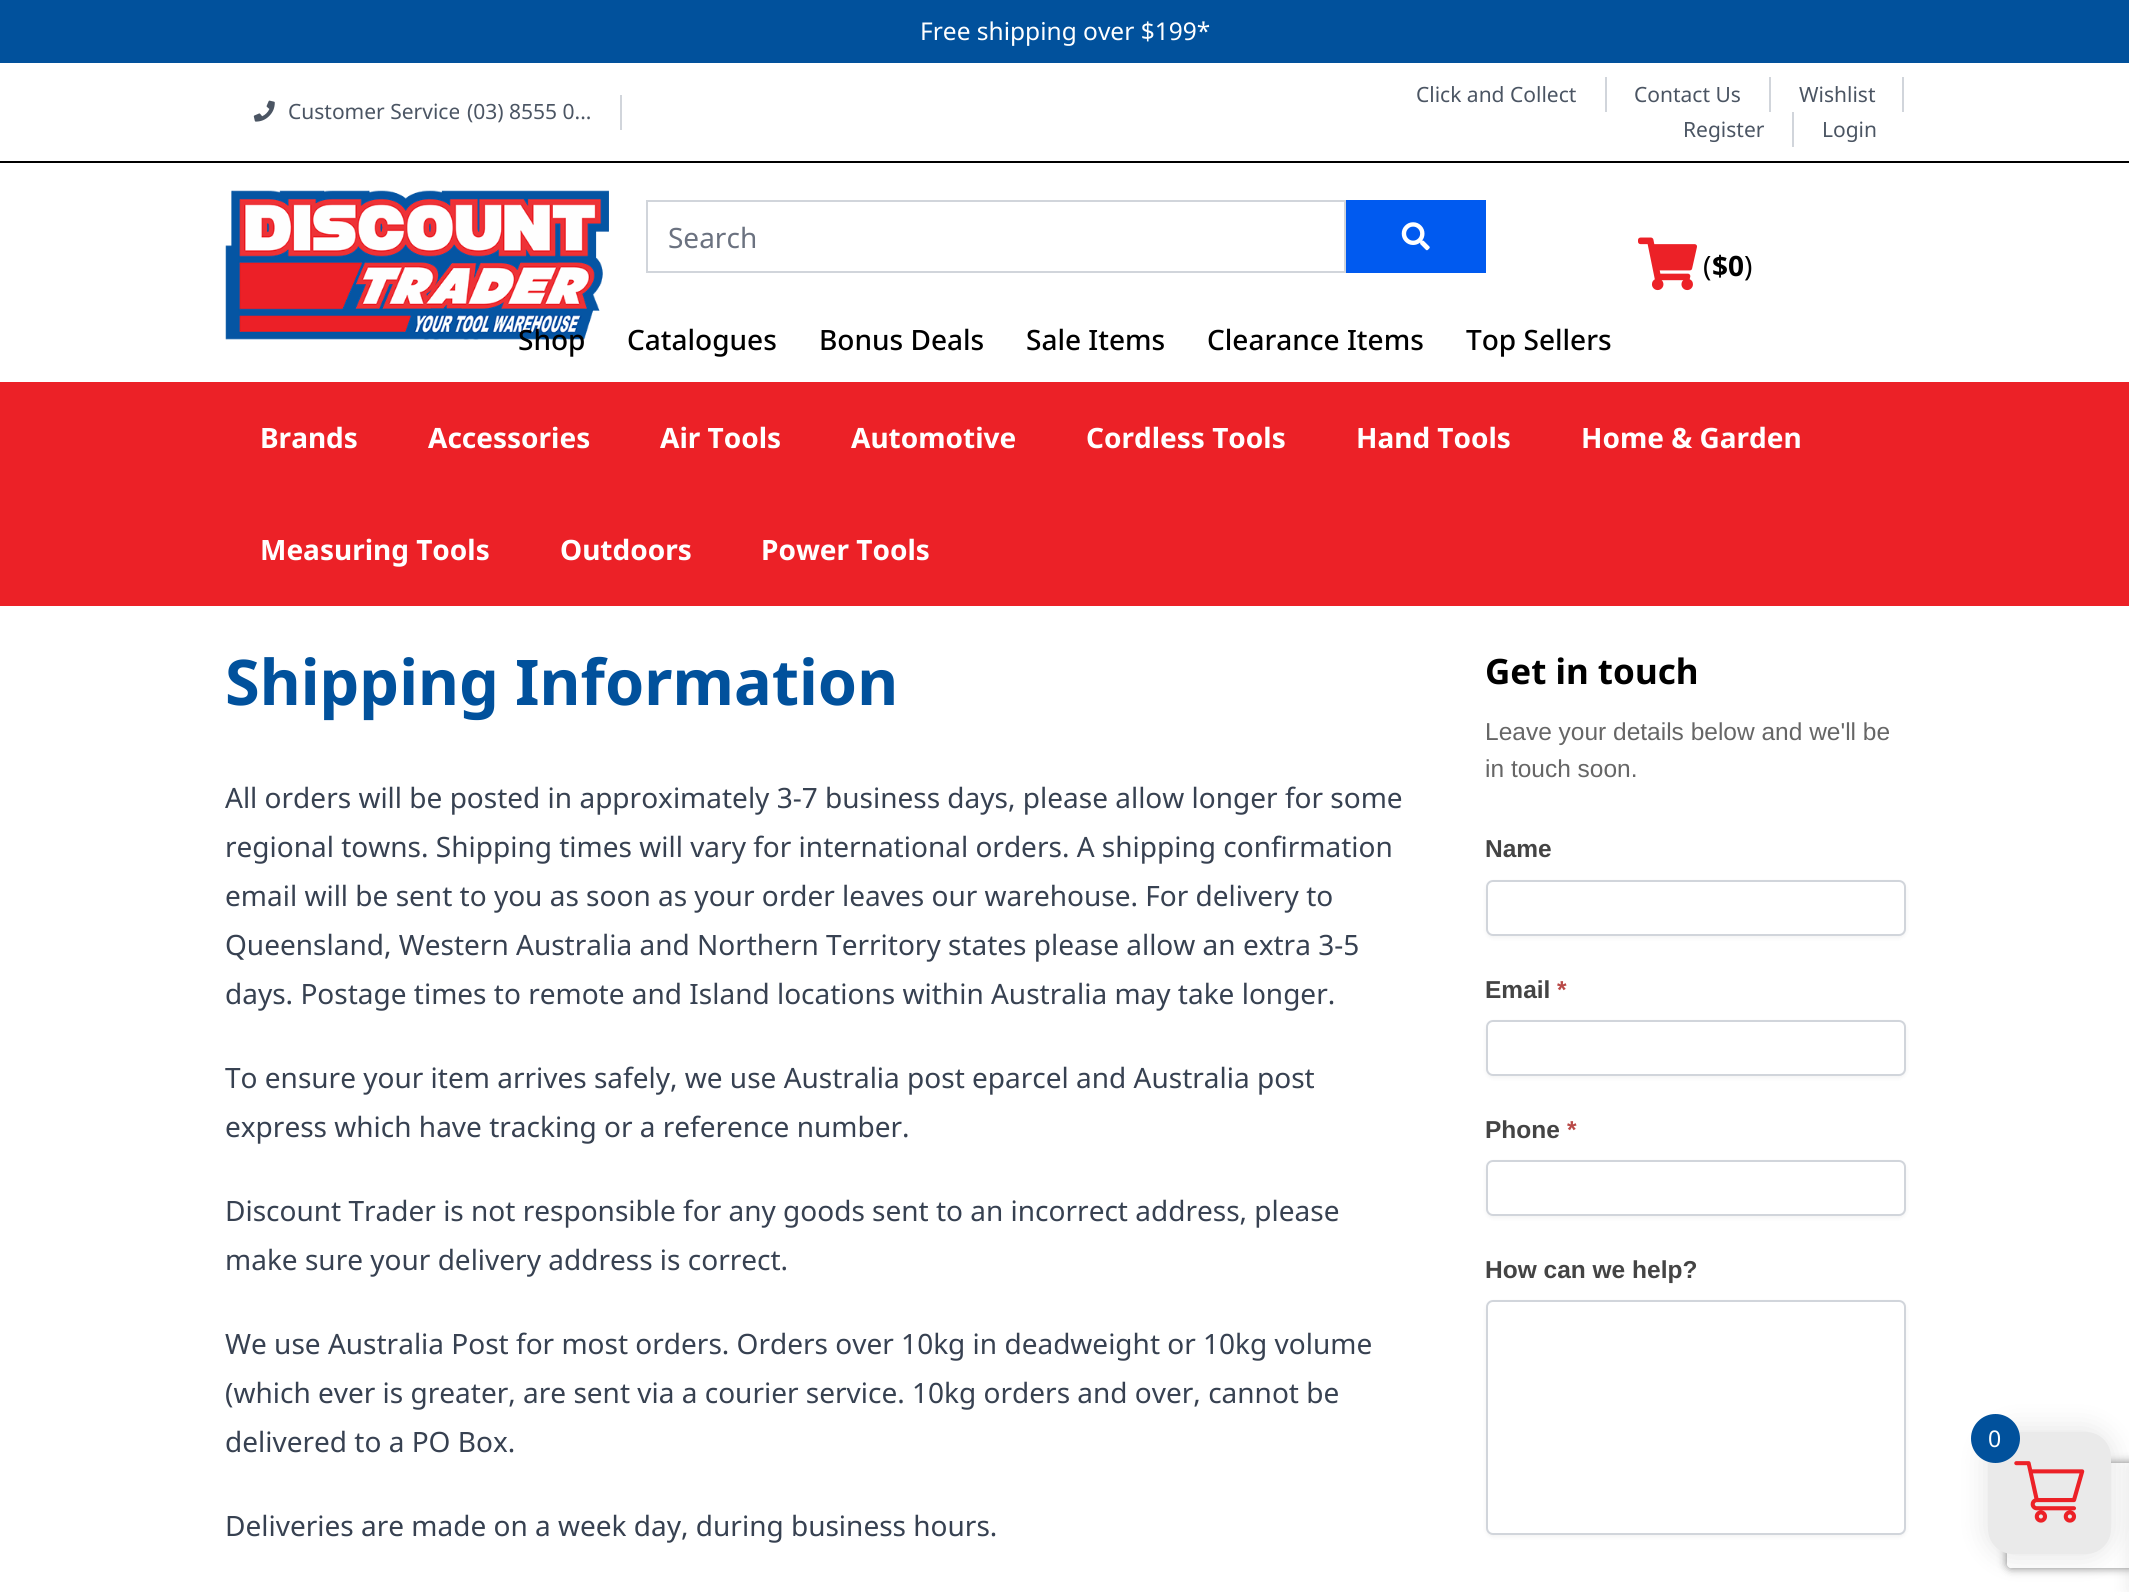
import math
import cairo


def use_color(cr, r, g, b):
  cr.set_source_rgb(r / 255, g / 255, b / 255)

def text(cr, x, y, s, family, size, color, bold=False, italic=False):
  cr.select_font_face(family, cairo.FONT_SLANT_ITALIC if italic else cairo.FONT_SLANT_NORMAL, cairo.FONT_WEIGHT_BOLD if bold else cairo.FONT_WEIGHT_NORMAL)
  cr.set_font_size(size)
  use_color(cr, *color)
  cr.move_to(x, y)
  cr.show_text(s)

def box(cr, x, y, w, h, *color):
  use_color(cr, *color)
  cr.rectangle(x, y, w, h)
  cr.fill()

def round_rect(cr, x, y, w, h, r):
  cr.new_sub_path()
  for i, (u, v) in enumerate([(x + w - r, y + h - r), (x + r, y + h - r), (x + r, y + r), (x + w - r, y + r)]):
    cr.arc(u, v, r, i * math.pi / 2, (i + 1) * math.pi / 2)
  cr.close_path()

def shadow(cr, x, y, w, h, r, blur, alpha):
  cr.push_group_with_content(cairo.CONTENT_ALPHA)
  cr.set_operator(cairo.OPERATOR_SOURCE)
  for i in range(15, -16, -2):
    e = blur * i / 6
    if min(w, h) + 2 * e > 0:
      cr.set_source_rgba(0, 0, 0, alpha * math.erfc((i - 1) / 8.5) / 2)
      round_rect(cr, x - e, y - e, w + 2 * e, h + 2 * e, max(0, min(r + e + blur * .6, min(w, h) / 2 + e)))
      cr.fill()
  cr.mask(cr.pop_group())

def picture(cr, path, x, y, w, h):
  cr.save()
  cr.set_source_surface(cairo.ImageSurface.create_from_png(path), x, y)
  cr.rectangle(x, y, w, h)
  cr.fill()
  cr.restore()

def draw(cr):
  use_color(cr, 255, 255, 255)
  cr.paint()
  box(cr, 0, 0, 2129, 63, 1, 81, 156)
  box(cr, 0, 161, 2129, 2, 0, 0, 0)
  box(cr, 620, 95, 2, 35, 209, 213, 219)
  picture(cr, "img_01.png", 253, 100, 22, 22)
  box(cr, 1605, 77, 2, 35, 209, 213, 219)
  box(cr, 1769, 77, 2, 35, 209, 213, 219)
  box(cr, 1902, 77, 2, 35, 209, 213, 219)
  box(cr, 1792, 112, 2, 35, 209, 213, 219)
  picture(cr, "img_02.png", 225, 190, 384, 150)
  cr.rectangle(647, 201, 698, 71)
  cr.stroke()
  box(cr, 1346, 200, 140, 73, 0, 90, 240)
  picture(cr, "img_03.png", 1401, 222, 29, 29)
  picture(cr, "img_04.png", 1638, 237, 59, 54)
  box(cr, 0, 382, 2129, 224, 236, 33, 39)
  use_color(cr, 0, 0, 0)
  shadow(cr, 1486, 882, 420, 56, 7, 2, 0.05)
  use_color(cr, 255, 255, 255)
  round_rect(cr, 1487, 881, 418, 54, 6)
  cr.fill_preserve()
  use_color(cr, 209, 213, 219)
  cr.stroke()
  use_color(cr, 0, 0, 0)
  shadow(cr, 1486, 1022, 420, 56, 7, 2, 0.05)
  use_color(cr, 255, 255, 255)
  round_rect(cr, 1487, 1021, 418, 54, 6)
  cr.fill_preserve()
  use_color(cr, 209, 213, 219)
  cr.stroke()
  use_color(cr, 0, 0, 0)
  shadow(cr, 1486, 1162, 420, 56, 7, 2, 0.05)
  use_color(cr, 255, 255, 255)
  round_rect(cr, 1487, 1161, 418, 54, 6)
  cr.fill_preserve()
  use_color(cr, 209, 213, 219)
  cr.stroke()
  use_color(cr, 0, 0, 0)
  shadow(cr, 1486, 1302, 420, 235, 7, 2, 0.05)
  use_color(cr, 255, 255, 255)
  round_rect(cr, 1487, 1301, 418, 233, 6)
  cr.fill_preserve()
  use_color(cr, 209, 213, 219)
  cr.stroke()
  use_color(cr, 0, 0, 0)
  shadow(cr, 1985, 1428, 129, 130, 28, 13, 0.1)
  shadow(cr, 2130, 1467, 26, 124, 0, 9, 0.1)
  cr.save()
  cr.set_fill_rule(cairo.FILL_RULE_EVEN_ODD)
  cr.new_path()
  cr.move_to(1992, 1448)
  cr.line_to(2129, 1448)
  cr.line_to(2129, 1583)
  cr.line_to(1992, 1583)
  cr.close_path()
  cr.move_to(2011, 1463)
  cr.line_to(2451, 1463)
  cr.curve_to(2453, 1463, 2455, 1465, 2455, 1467)
  cr.line_to(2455, 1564)
  cr.curve_to(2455, 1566, 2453, 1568, 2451, 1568)
  cr.line_to(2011, 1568)
  cr.curve_to(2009, 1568, 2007, 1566, 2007, 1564)
  cr.line_to(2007, 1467)
  cr.curve_to(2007, 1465, 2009, 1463, 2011, 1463)
  cr.close_path()
  cr.clip()
  use_color(cr, 128, 128, 128)
  shadow(cr, 2007, 1463, 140, 105, 4, 4.5, 1)
  cr.restore()
  use_color(cr, 234, 234, 234)
  round_rect(cr, 1988, 1432, 123, 122, 25)
  cr.fill()
  picture(cr, "img_05.png", 2014, 1461, 71, 62)
  use_color(cr, 1, 81, 156)
  cr.arc(1995.5, 1438.5, 24.5, 0, 2 * math.pi)
  cr.fill()
  text(cr, 920, 40, "Free shipping over $199*", "Noto Sans", 24.5, (255, 255, 255))
  text(cr, 288, 119, "Customer Service", "Noto Sans", 21, (75, 85, 99))
  text(cr, 467, 119, "(03) 8555 0...", "Noto Sans", 21, (75, 85, 99))
  text(cr, 1416, 102, "Click and Collect", "Noto Sans", 21, (75, 85, 99))
  text(cr, 1634, 102, "Contact Us", "Noto Sans", 21, (75, 85, 99))
  text(cr, 1799, 102, "Wishlist", "Noto Sans", 21, (75, 85, 99))
  text(cr, 1683, 137, "Register", "Noto Sans", 21, (75, 85, 99))
  text(cr, 1822, 137, "Login", "Noto Sans", 21, (75, 85, 99))
  text(cr, 668, 248, "Search", "Noto Sans", 28, (107, 114, 128))
  text(cr, 1703, 276, "(", "Noto Sans", 28, (0, 0, 0))
  text(cr, 1712, 276, "$0", "Noto Sans", 28, (0, 0, 0), bold=True)
  text(cr, 1744, 276, ")", "Noto Sans", 28, (0, 0, 0))
  text(cr, 518, 350, "Shop", "Noto Sans Medium", 28, (0, 0, 0))
  text(cr, 627, 350, "Catalogues", "Noto Sans Medium", 28, (0, 0, 0))
  text(cr, 819, 350, "Bonus Deals", "Noto Sans Medium", 28, (0, 0, 0))
  text(cr, 1026, 350, "Sale Items", "Noto Sans Medium", 28, (0, 0, 0))
  text(cr, 1207, 350, "Clearance Items", "Noto Sans Medium", 28, (0, 0, 0))
  text(cr, 1466, 350, "Top Sellers", "Noto Sans Medium", 28, (0, 0, 0))
  text(cr, 260, 448, "Brands", "Noto Sans", 28, (255, 255, 255), bold=True)
  text(cr, 428, 448, "Accessories", "Noto Sans", 28, (255, 255, 255), bold=True)
  text(cr, 660, 448, "Air Tools", "Noto Sans", 28, (255, 255, 255), bold=True)
  text(cr, 851, 448, "Automotive", "Noto Sans", 28, (255, 255, 255), bold=True)
  text(cr, 1086, 448, "Cordless Tools", "Noto Sans", 28, (255, 255, 255), bold=True)
  text(cr, 1356, 448, "Hand Tools", "Noto Sans", 28, (255, 255, 255), bold=True)
  text(cr, 1581, 448, "Home & Garden", "Noto Sans", 28, (255, 255, 255), bold=True)
  text(cr, 260, 560, "Measuring Tools", "Noto Sans", 28, (255, 255, 255), bold=True)
  text(cr, 560, 560, "Outdoors", "Noto Sans", 28, (255, 255, 255), bold=True)
  text(cr, 761, 560, "Power Tools", "Noto Sans", 28, (255, 255, 255), bold=True)
  text(cr, 225, 705, "Shipping Information", "Noto Sans", 63, (1, 81, 156), bold=True)
  text(cr, 225, 808, "All orders will be posted in approximately 3-7 business days, please allow longer for some", "Noto Sans", 28, (55, 65, 81))
  text(cr, 225, 857, "regional towns. Shipping times will vary for international orders. A shipping confirmation", "Noto Sans", 28, (55, 65, 81))
  text(cr, 225, 906, "email will be sent to you as soon as your order leaves our warehouse. For delivery to", "Noto Sans", 28, (55, 65, 81))
  text(cr, 225, 955, "Queensland, Western Australia and Northern Territory states please allow an extra 3-5", "Noto Sans", 28, (55, 65, 81))
  text(cr, 225, 1004, "days. Postage times to remote and Island locations within Australia may take longer.", "Noto Sans", 28, (55, 65, 81))
  text(cr, 225, 1088, "To ensure your item arrives safely, we use Australia post eparcel and Australia post", "Noto Sans", 28, (55, 65, 81))
  text(cr, 225, 1137, "express which have tracking or a reference number.", "Noto Sans", 28, (55, 65, 81))
  text(cr, 225, 1221, "Discount Trader is not responsible for any goods sent to an incorrect address, please", "Noto Sans", 28, (55, 65, 81))
  text(cr, 225, 1270, "make sure your delivery address is correct.", "Noto Sans", 28, (55, 65, 81))
  text(cr, 225, 1354, "We use Australia Post for most orders. Orders over 10kg in deadweight or 10kg volume", "Noto Sans", 28, (55, 65, 81))
  text(cr, 225, 1403, "(which ever is greater, are sent via a courier service. 10kg orders and over, cannot be", "Noto Sans", 28, (55, 65, 81))
  text(cr, 225, 1452, "delivered to a PO Box.", "Noto Sans", 28, (55, 65, 81))
  text(cr, 225, 1536, "Deliveries are made on a week day, during business hours.", "Noto Sans", 28, (55, 65, 81))
  text(cr, 1485, 684, "Get in touch", "Noto Sans", 35, (0, 0, 0), bold=True)
  text(cr, 1485, 740, "Leave your details below and we'll be", "Liberation Sans", 24.5, (102, 102, 102))
  text(cr, 1485, 777, "in touch soon.", "Liberation Sans", 24.5, (102, 102, 102))
  text(cr, 1485, 857, "Name", "Liberation Sans", 24.5, (68, 68, 68), bold=True)
  text(cr, 1485, 998, "Email", "Liberation Sans", 24.5, (68, 68, 68), bold=True)
  text(cr, 1557, 998, "*", "Liberation Sans", 24.5, (185, 74, 72), bold=True)
  text(cr, 1485, 1138, "Phone", "Liberation Sans", 24.5, (68, 68, 68), bold=True)
  text(cr, 1567, 1138, "*", "Liberation Sans", 24.5, (185, 74, 72), bold=True)
  text(cr, 1485, 1278, "How can we help?", "Liberation Sans", 24.5, (68, 68, 68), bold=True)
  text(cr, 1988, 1447, "0", "Noto Sans", 23, (255, 255, 255))


surface = cairo.ImageSurface(cairo.FORMAT_RGB24, 2129, 1592)
cr = cairo.Context(surface)
options = cairo.FontOptions()
options.set_hint_metrics(cairo.HINT_METRICS_OFF)
options.set_hint_style(cairo.HINT_STYLE_NONE)
cr.set_font_options(options)
cr.set_miter_limit(4)
draw(cr)
surface.write_to_png("out.png")
